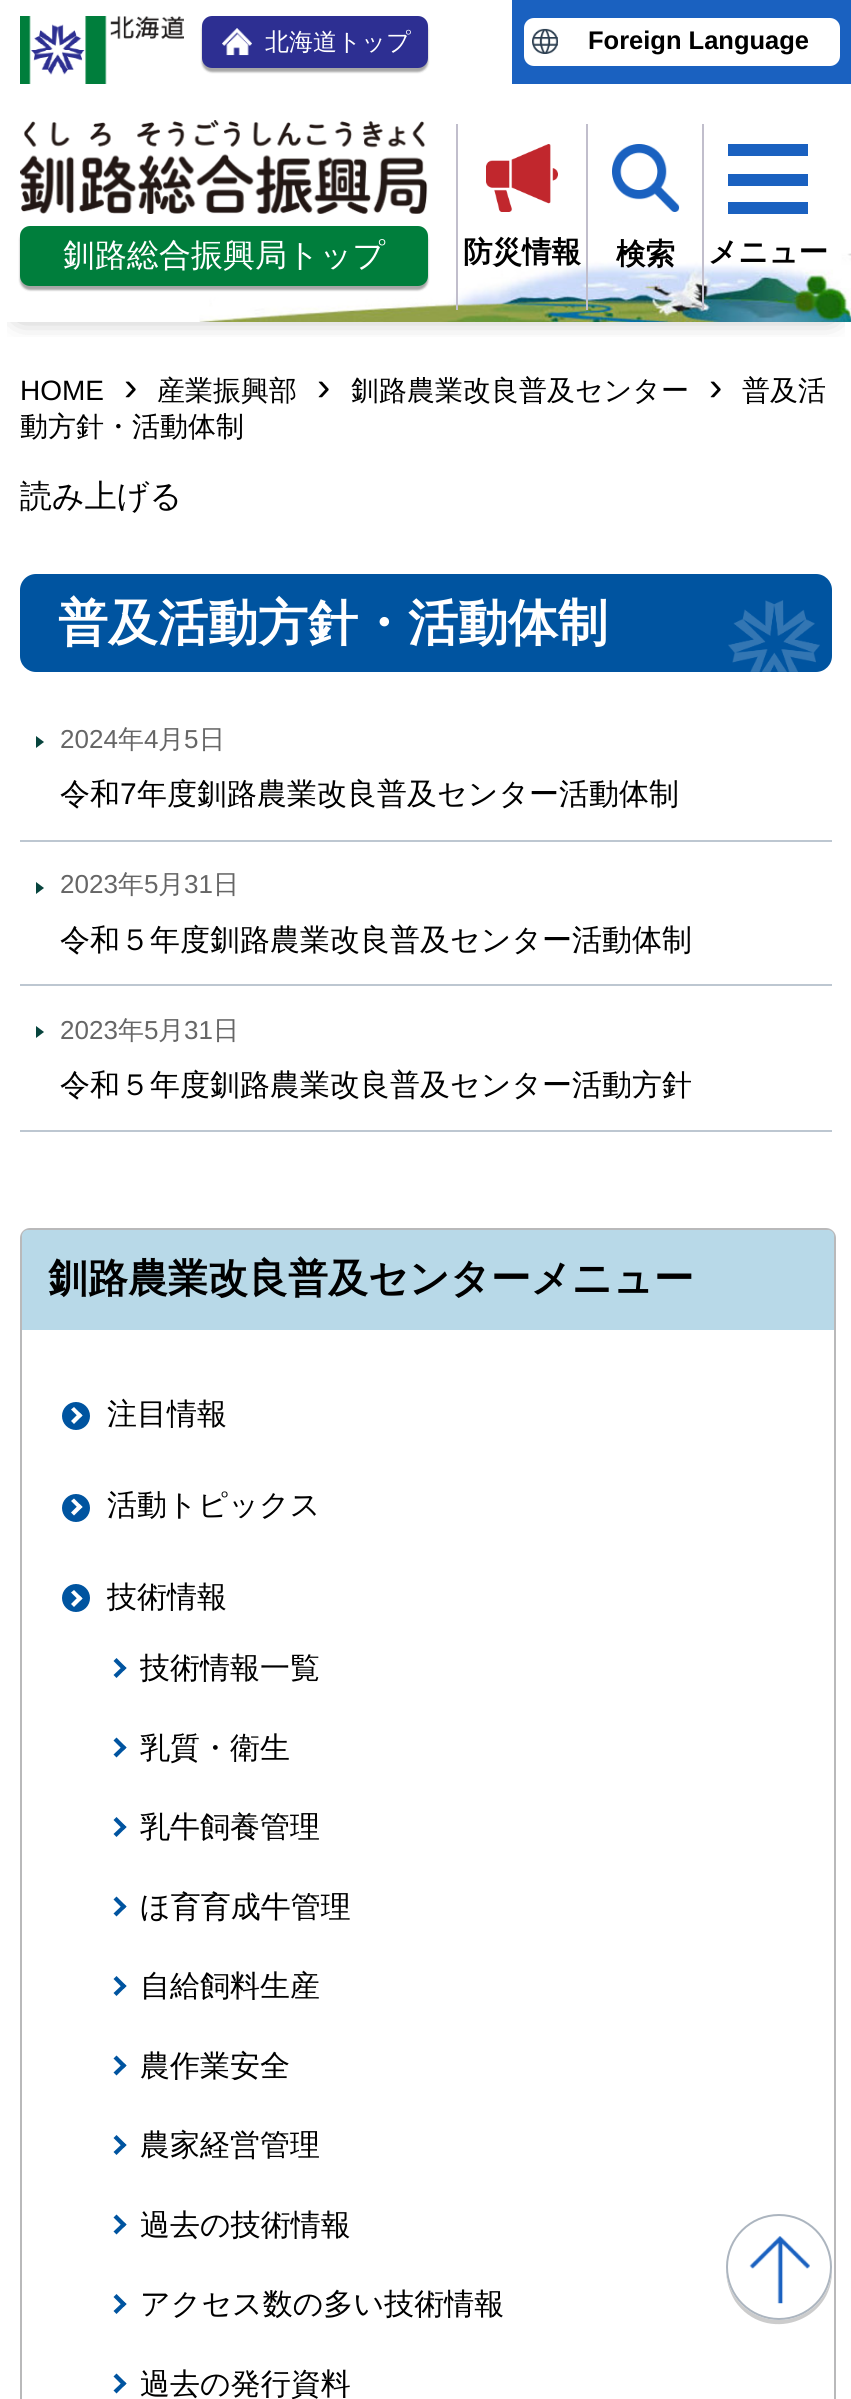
import math
import cairo


def use_color(cr, r, g, b):
  cr.set_source_rgb(r / 255, g / 255, b / 255)

def text(cr, x, y, s, family, size, color, bold=False, italic=False):
  cr.select_font_face(family, cairo.FONT_SLANT_ITALIC if italic else cairo.FONT_SLANT_NORMAL, cairo.FONT_WEIGHT_BOLD if bold else cairo.FONT_WEIGHT_NORMAL)
  cr.set_font_size(size)
  use_color(cr, *color)
  cr.move_to(x, y)
  cr.show_text(s)

def box(cr, x, y, w, h, *color):
  use_color(cr, *color)
  cr.rectangle(x, y, w, h)
  cr.fill()

def round_rect(cr, x, y, w, h, r):
  cr.new_sub_path()
  for i, (u, v) in enumerate([(x + w - r, y + h - r), (x + r, y + h - r), (x + r, y + r), (x + w - r, y + r)]):
    cr.arc(u, v, r, i * math.pi / 2, (i + 1) * math.pi / 2)
  cr.close_path()

def shadow(cr, x, y, w, h, r, blur, alpha):
  cr.push_group_with_content(cairo.CONTENT_ALPHA)
  cr.set_operator(cairo.OPERATOR_SOURCE)
  for i in range(15, -16, -2):
    e = blur * i / 6
    if min(w, h) + 2 * e > 0:
      cr.set_source_rgba(0, 0, 0, alpha * math.erfc((i - 1) / 8.5) / 2)
      round_rect(cr, x - e, y - e, w + 2 * e, h + 2 * e, max(0, min(r + e + blur * .6, min(w, h) / 2 + e)))
      cr.fill()
  cr.mask(cr.pop_group())

def picture(cr, path, x, y, w, h):
  cr.save()
  cr.set_source_surface(cairo.ImageSurface.create_from_png(path), x, y)
  cr.rectangle(x, y, w, h)
  cr.fill()
  cr.restore()

def draw(cr):
  use_color(cr, 255, 255, 255)
  cr.paint()
  picture(cr, "img_06.png", 199, 253, 652, 69)
  cr.save()
  cr.rectangle(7, 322, 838, 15)
  cr.clip()
  use_color(cr, 0, 0, 0)
  shadow(cr, 20, 32, 812, 282, 0, 14, 0.4)
  cr.restore()
  picture(cr, "img_01.png", 20, 16, 164, 68)
  use_color(cr, 0, 0, 0)
  shadow(cr, 202, 20, 226, 52, 10, 1, 0.35)
  use_color(cr, 45, 47, 146)
  round_rect(cr, 202, 16, 226, 52, 10)
  cr.fill()
  picture(cr, "img_02.png", 222, 28, 30, 28)
  picture(cr, "img_03.png", 20, 120, 408, 94)
  use_color(cr, 0, 0, 0)
  shadow(cr, 20, 230, 408, 60, 10, 1, 0.35)
  use_color(cr, 0, 126, 60)
  round_rect(cr, 20, 226, 408, 60, 10)
  cr.fill()
  box(cr, 456, 124, 2, 186, 193, 190, 204)
  picture(cr, "img_04.png", 486, 144, 72, 68)
  box(cr, 586, 124, 2, 186, 193, 190, 204)
  picture(cr, "img_05.png", 612, 144, 68, 68)
  box(cr, 702, 124, 2, 186, 193, 190, 204)
  box(cr, 728, 144, 80, 12, 26, 97, 192)
  box(cr, 728, 174, 80, 12, 26, 97, 192)
  box(cr, 728, 202, 80, 12, 26, 97, 192)
  box(cr, 512, 0, 339, 84, 26, 97, 192)
  use_color(cr, 255, 255, 255)
  round_rect(cr, 524, 18, 316, 48, 10)
  cr.fill()
  picture(cr, "img_07.png", 532, 28, 26, 26)
  use_color(cr, 0, 84, 160)
  round_rect(cr, 20, 574, 812, 98, 16)
  cr.fill()
  picture(cr, "img_08.png", 728, 600, 92, 72)
  box(cr, 20, 840, 812, 2, 189, 199, 209)
  use_color(cr, 7, 68, 61)
  cr.new_path()
  cr.move_to(36, 748)
  cr.line_to(36, 736)
  cr.line_to(44, 742)
  cr.close_path()
  cr.fill()
  box(cr, 20, 984, 812, 2, 189, 199, 209)
  use_color(cr, 7, 68, 61)
  cr.new_path()
  cr.move_to(36, 894)
  cr.line_to(36, 882)
  cr.line_to(44, 888)
  cr.close_path()
  cr.fill()
  box(cr, 20, 1130, 812, 2, 189, 199, 209)
  use_color(cr, 7, 68, 61)
  cr.new_path()
  cr.move_to(36, 1038)
  cr.line_to(36, 1026)
  cr.line_to(44, 1032)
  cr.close_path()
  cr.fill()
  round_rect(cr, 21, 1229, 814, 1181, 9)
  use_color(cr, 185, 185, 186)
  cr.stroke()
  use_color(cr, 184, 217, 232)
  cr.new_path()
  cr.move_to(28, 1230)
  cr.line_to(828, 1230)
  cr.curve_to(831.5, 1230, 834, 1232.5, 834, 1236)
  cr.line_to(834, 1330)
  cr.line_to(22, 1330)
  cr.line_to(22, 1236)
  cr.curve_to(22, 1232.5, 24.5, 1230, 28, 1230)
  cr.close_path()
  cr.fill()
  use_color(cr, 0, 84, 160)
  cr.arc(76, 1416, 14, 0, 2 * math.pi)
  cr.fill()
  use_color(cr, 255, 255, 255)
  cr.new_path()
  cr.move_to(74, 1407)
  cr.line_to(82.5, 1415.5)
  cr.line_to(79.5, 1418)
  cr.line_to(71, 1409.5)
  cr.close_path()
  cr.fill()
  cr.new_path()
  cr.move_to(79.5, 1412.5)
  cr.line_to(82.5, 1415.5)
  cr.line_to(74, 1424)
  cr.line_to(71, 1421)
  cr.close_path()
  cr.fill()
  use_color(cr, 0, 84, 160)
  cr.arc(76, 1508, 14, 0, 2 * math.pi)
  cr.fill()
  use_color(cr, 255, 255, 255)
  cr.new_path()
  cr.move_to(74, 1498.5)
  cr.line_to(82.5, 1507)
  cr.line_to(79.5, 1509.5)
  cr.line_to(71, 1501)
  cr.close_path()
  cr.fill()
  cr.new_path()
  cr.move_to(79.5, 1504)
  cr.line_to(82.5, 1507)
  cr.line_to(74, 1515.5)
  cr.line_to(71, 1512.5)
  cr.close_path()
  cr.fill()
  use_color(cr, 0, 84, 160)
  cr.arc(76, 1598, 14, 0, 2 * math.pi)
  cr.fill()
  use_color(cr, 255, 255, 255)
  cr.new_path()
  cr.move_to(74, 1590)
  cr.line_to(82.5, 1598.5)
  cr.line_to(79.5, 1601)
  cr.line_to(71, 1592.5)
  cr.close_path()
  cr.fill()
  cr.new_path()
  cr.move_to(79.5, 1595.5)
  cr.line_to(82.5, 1598.5)
  cr.line_to(74, 1607)
  cr.line_to(71, 1604)
  cr.close_path()
  cr.fill()
  use_color(cr, 0, 84, 160)
  cr.new_path()
  cr.move_to(116.5, 1658)
  cr.line_to(126.5, 1668)
  cr.line_to(123.5, 1671)
  cr.line_to(113.5, 1661)
  cr.close_path()
  cr.fill()
  cr.new_path()
  cr.move_to(123.5, 1665.5)
  cr.line_to(126.5, 1668)
  cr.line_to(116.5, 1678)
  cr.line_to(113.5, 1675)
  cr.close_path()
  cr.fill()
  cr.new_path()
  cr.move_to(116.5, 1737.5)
  cr.line_to(126.5, 1747.5)
  cr.line_to(123.5, 1750.5)
  cr.line_to(113.5, 1740.5)
  cr.close_path()
  cr.fill()
  cr.new_path()
  cr.move_to(123.5, 1745)
  cr.line_to(126.5, 1747.5)
  cr.line_to(116.5, 1757.5)
  cr.line_to(113.5, 1754.5)
  cr.close_path()
  cr.fill()
  cr.new_path()
  cr.move_to(116.5, 1817)
  cr.line_to(126.5, 1827)
  cr.line_to(123.5, 1830)
  cr.line_to(113.5, 1820)
  cr.close_path()
  cr.fill()
  cr.new_path()
  cr.move_to(123.5, 1824.5)
  cr.line_to(126.5, 1827)
  cr.line_to(116.5, 1837)
  cr.line_to(113.5, 1834)
  cr.close_path()
  cr.fill()
  cr.new_path()
  cr.move_to(116.5, 1896.5)
  cr.line_to(126.5, 1906.5)
  cr.line_to(123.5, 1909.5)
  cr.line_to(113.5, 1899.5)
  cr.close_path()
  cr.fill()
  cr.new_path()
  cr.move_to(123.5, 1904)
  cr.line_to(126.5, 1906.5)
  cr.line_to(116.5, 1916.5)
  cr.line_to(113.5, 1913.5)
  cr.close_path()
  cr.fill()
  cr.new_path()
  cr.move_to(116.5, 1976)
  cr.line_to(126.5, 1986)
  cr.line_to(123.5, 1989)
  cr.line_to(113.5, 1979)
  cr.close_path()
  cr.fill()
  cr.new_path()
  cr.move_to(123.5, 1983.5)
  cr.line_to(126.5, 1986)
  cr.line_to(116.5, 1996)
  cr.line_to(113.5, 1993)
  cr.close_path()
  cr.fill()
  cr.new_path()
  cr.move_to(116.5, 2055.5)
  cr.line_to(126.5, 2065.5)
  cr.line_to(123.5, 2068.5)
  cr.line_to(113.5, 2058.5)
  cr.close_path()
  cr.fill()
  cr.new_path()
  cr.move_to(123.5, 2063)
  cr.line_to(126.5, 2065.5)
  cr.line_to(116.5, 2075.5)
  cr.line_to(113.5, 2072.5)
  cr.close_path()
  cr.fill()
  cr.new_path()
  cr.move_to(116.5, 2135)
  cr.line_to(126.5, 2145)
  cr.line_to(123.5, 2148)
  cr.line_to(113.5, 2138)
  cr.close_path()
  cr.fill()
  cr.new_path()
  cr.move_to(123.5, 2142.5)
  cr.line_to(126.5, 2145)
  cr.line_to(116.5, 2155)
  cr.line_to(113.5, 2152)
  cr.close_path()
  cr.fill()
  cr.new_path()
  cr.move_to(116.5, 2214.5)
  cr.line_to(126.5, 2224.5)
  cr.line_to(123.5, 2227.5)
  cr.line_to(113.5, 2217.5)
  cr.close_path()
  cr.fill()
  cr.new_path()
  cr.move_to(123.5, 2222)
  cr.line_to(126.5, 2224.5)
  cr.line_to(116.5, 2234.5)
  cr.line_to(113.5, 2231.5)
  cr.close_path()
  cr.fill()
  cr.new_path()
  cr.move_to(116.5, 2294)
  cr.line_to(126.5, 2304)
  cr.line_to(123.5, 2307)
  cr.line_to(113.5, 2297)
  cr.close_path()
  cr.fill()
  cr.new_path()
  cr.move_to(123.5, 2301.5)
  cr.line_to(126.5, 2304)
  cr.line_to(116.5, 2314)
  cr.line_to(113.5, 2311)
  cr.close_path()
  cr.fill()
  cr.new_path()
  cr.move_to(116.5, 2373.5)
  cr.line_to(126.5, 2383.5)
  cr.line_to(123.5, 2386.5)
  cr.line_to(113.5, 2376.5)
  cr.close_path()
  cr.fill()
  cr.new_path()
  cr.move_to(123.5, 2381)
  cr.line_to(126.5, 2383.5)
  cr.line_to(116.5, 2393.5)
  cr.line_to(113.5, 2390.5)
  cr.close_path()
  cr.fill()
  use_color(cr, 204, 204, 204)
  cr.new_path()
  cr.move_to(832, 2269)
  cr.curve_to(831, 2297, 808, 2320, 779, 2320)
  cr.curve_to(750, 2320, 727, 2297, 726, 2269)
  cr.curve_to(726, 2280, 729, 2291, 735, 2301)
  cr.curve_to(765, 2345, 834, 2322, 832, 2269)
  cr.close_path()
  cr.fill()
  cr.set_source_rgba(1, 1, 1, 0.9)
  cr.arc(779, 2267, 52, 0, 2 * math.pi)
  cr.fill_preserve()
  use_color(cr, 172, 181, 191)
  cr.stroke()
  picture(cr, "img_09.png", 749, 2236, 61, 68)
  text(cr, 265, 50, "北海道トップ", "WenQuanYi Zen Hei Medium", 24, (255, 255, 255))
  text(cr, 63, 266, "釧路総合振興局トップ", "WenQuanYi Zen Hei Medium", 32, (255, 255, 255))
  text(cr, 463, 262, "防災情報", "WenQuanYi Zen Hei", 29.5, (0, 0, 0), bold=True)
  text(cr, 616, 264, "検索", "WenQuanYi Zen Hei", 29.5, (0, 0, 0), bold=True)
  text(cr, 708, 262, "メニュー", "WenQuanYi Zen Hei", 29.5, (0, 0, 0), bold=True)
  text(cr, 588, 49, "Foreign Language", "Liberation Sans", 25.5, (0, 0, 0), bold=True)
  text(cr, 20, 400, "HOME", "Liberation Sans", 28, (0, 0, 0))
  text(cr, 124, 400, "›", "Liberation Sans", 40, (0, 0, 0))
  text(cr, 157, 400, "産業振興部", "WenQuanYi Zen Hei Medium", 28, (0, 0, 0))
  text(cr, 317, 400, "›", "Liberation Sans", 40, (0, 0, 0))
  text(cr, 351, 400, "釧路農業改良普及センター", "WenQuanYi Zen Hei Medium", 28, (0, 0, 0))
  text(cr, 709, 400, "›", "Liberation Sans", 40, (0, 0, 0))
  text(cr, 742, 400, "普及活", "WenQuanYi Zen Hei Medium", 28, (0, 0, 0))
  text(cr, 20, 436, "動方針・活動体制", "WenQuanYi Zen Hei Medium", 28, (0, 0, 0))
  text(cr, 20, 507, "読み上げる", "WenQuanYi Zen Hei Medium", 32, (0, 0, 0))
  text(cr, 58, 640, "普及活動方針・活動体制", "WenQuanYi Zen Hei", 50, (255, 255, 255), bold=True)
  text(cr, 60, 748, "2024", "Liberation Sans", 26, (102, 102, 102))
  text(cr, 118, 748, "年", "WenQuanYi Zen Hei Medium", 26, (102, 102, 102))
  text(cr, 144, 748, "4", "Liberation Sans", 26, (102, 102, 102))
  text(cr, 158, 748, "月", "WenQuanYi Zen Hei Medium", 26, (102, 102, 102))
  text(cr, 184, 748, "5", "Liberation Sans", 26, (102, 102, 102))
  text(cr, 199, 748, "日", "WenQuanYi Zen Hei Medium", 26, (102, 102, 102))
  text(cr, 60, 804, "令和", "WenQuanYi Zen Hei Medium", 30, (0, 0, 0))
  text(cr, 120, 804, "7", "Liberation Sans", 30, (0, 0, 0))
  text(cr, 137, 804, "年度釧路農業改良普及センター活動体制", "WenQuanYi Zen Hei Medium", 30, (0, 0, 0))
  text(cr, 60, 893, "2023", "Liberation Sans", 26, (102, 102, 102))
  text(cr, 118, 893, "年", "WenQuanYi Zen Hei Medium", 26, (102, 102, 102))
  text(cr, 144, 893, "5", "Liberation Sans", 26, (102, 102, 102))
  text(cr, 158, 893, "月", "WenQuanYi Zen Hei Medium", 26, (102, 102, 102))
  text(cr, 184, 893, "31", "Liberation Sans", 26, (102, 102, 102))
  text(cr, 213, 893, "日", "WenQuanYi Zen Hei Medium", 26, (102, 102, 102))
  text(cr, 60, 950, "令和５年度釧路農業改良普及センター活動体制", "WenQuanYi Zen Hei Medium", 30, (0, 0, 0))
  text(cr, 60, 1039, "2023", "Liberation Sans", 26, (102, 102, 102))
  text(cr, 118, 1039, "年", "WenQuanYi Zen Hei Medium", 26, (102, 102, 102))
  text(cr, 144, 1039, "5", "Liberation Sans", 26, (102, 102, 102))
  text(cr, 158, 1039, "月", "WenQuanYi Zen Hei Medium", 26, (102, 102, 102))
  text(cr, 184, 1039, "31", "Liberation Sans", 26, (102, 102, 102))
  text(cr, 213, 1039, "日", "WenQuanYi Zen Hei Medium", 26, (102, 102, 102))
  text(cr, 60, 1095, "令和５年度釧路農業改良普及センター活動方針", "WenQuanYi Zen Hei Medium", 30, (0, 0, 0))
  text(cr, 48, 1292, "釧路農業改良普及センターメニュー", "WenQuanYi Zen Hei", 40, (0, 0, 0), bold=True)
  text(cr, 107, 1424, "注目情報", "WenQuanYi Zen Hei Medium", 30, (0, 0, 0))
  text(cr, 107, 1515, "活動トピックス", "WenQuanYi Zen Hei Medium", 30, (0, 0, 0))
  text(cr, 107, 1607, "技術情報", "WenQuanYi Zen Hei Medium", 30, (0, 0, 0))
  text(cr, 140, 1678, "技術情報一覧", "WenQuanYi Zen Hei Medium", 30, (0, 0, 0))
  text(cr, 140, 1758, "乳質・衛生", "WenQuanYi Zen Hei Medium", 30, (0, 0, 0))
  text(cr, 140, 1837, "乳牛飼養管理", "WenQuanYi Zen Hei Medium", 30, (0, 0, 0))
  text(cr, 140, 1917, "ほ育育成牛管理", "WenQuanYi Zen Hei Medium", 30, (0, 0, 0))
  text(cr, 140, 1996, "自給飼料生産", "WenQuanYi Zen Hei Medium", 30, (0, 0, 0))
  text(cr, 140, 2076, "農作業安全", "WenQuanYi Zen Hei Medium", 30, (0, 0, 0))
  text(cr, 140, 2155, "農家経営管理", "WenQuanYi Zen Hei Medium", 30, (0, 0, 0))
  text(cr, 140, 2235, "過去の技術情報", "WenQuanYi Zen Hei Medium", 30, (0, 0, 0))
  text(cr, 140, 2314, "アクセス数の多い技術情報", "WenQuanYi Zen Hei Medium", 30, (0, 0, 0))
  text(cr, 140, 2394, "過去の発行資料", "WenQuanYi Zen Hei Medium", 30, (0, 0, 0))


surface = cairo.ImageSurface(cairo.FORMAT_RGB24, 851, 2399)
cr = cairo.Context(surface)
options = cairo.FontOptions()
options.set_hint_metrics(cairo.HINT_METRICS_OFF)
options.set_hint_style(cairo.HINT_STYLE_NONE)
cr.set_font_options(options)
cr.set_miter_limit(4)
draw(cr)
surface.write_to_png("out.png")
